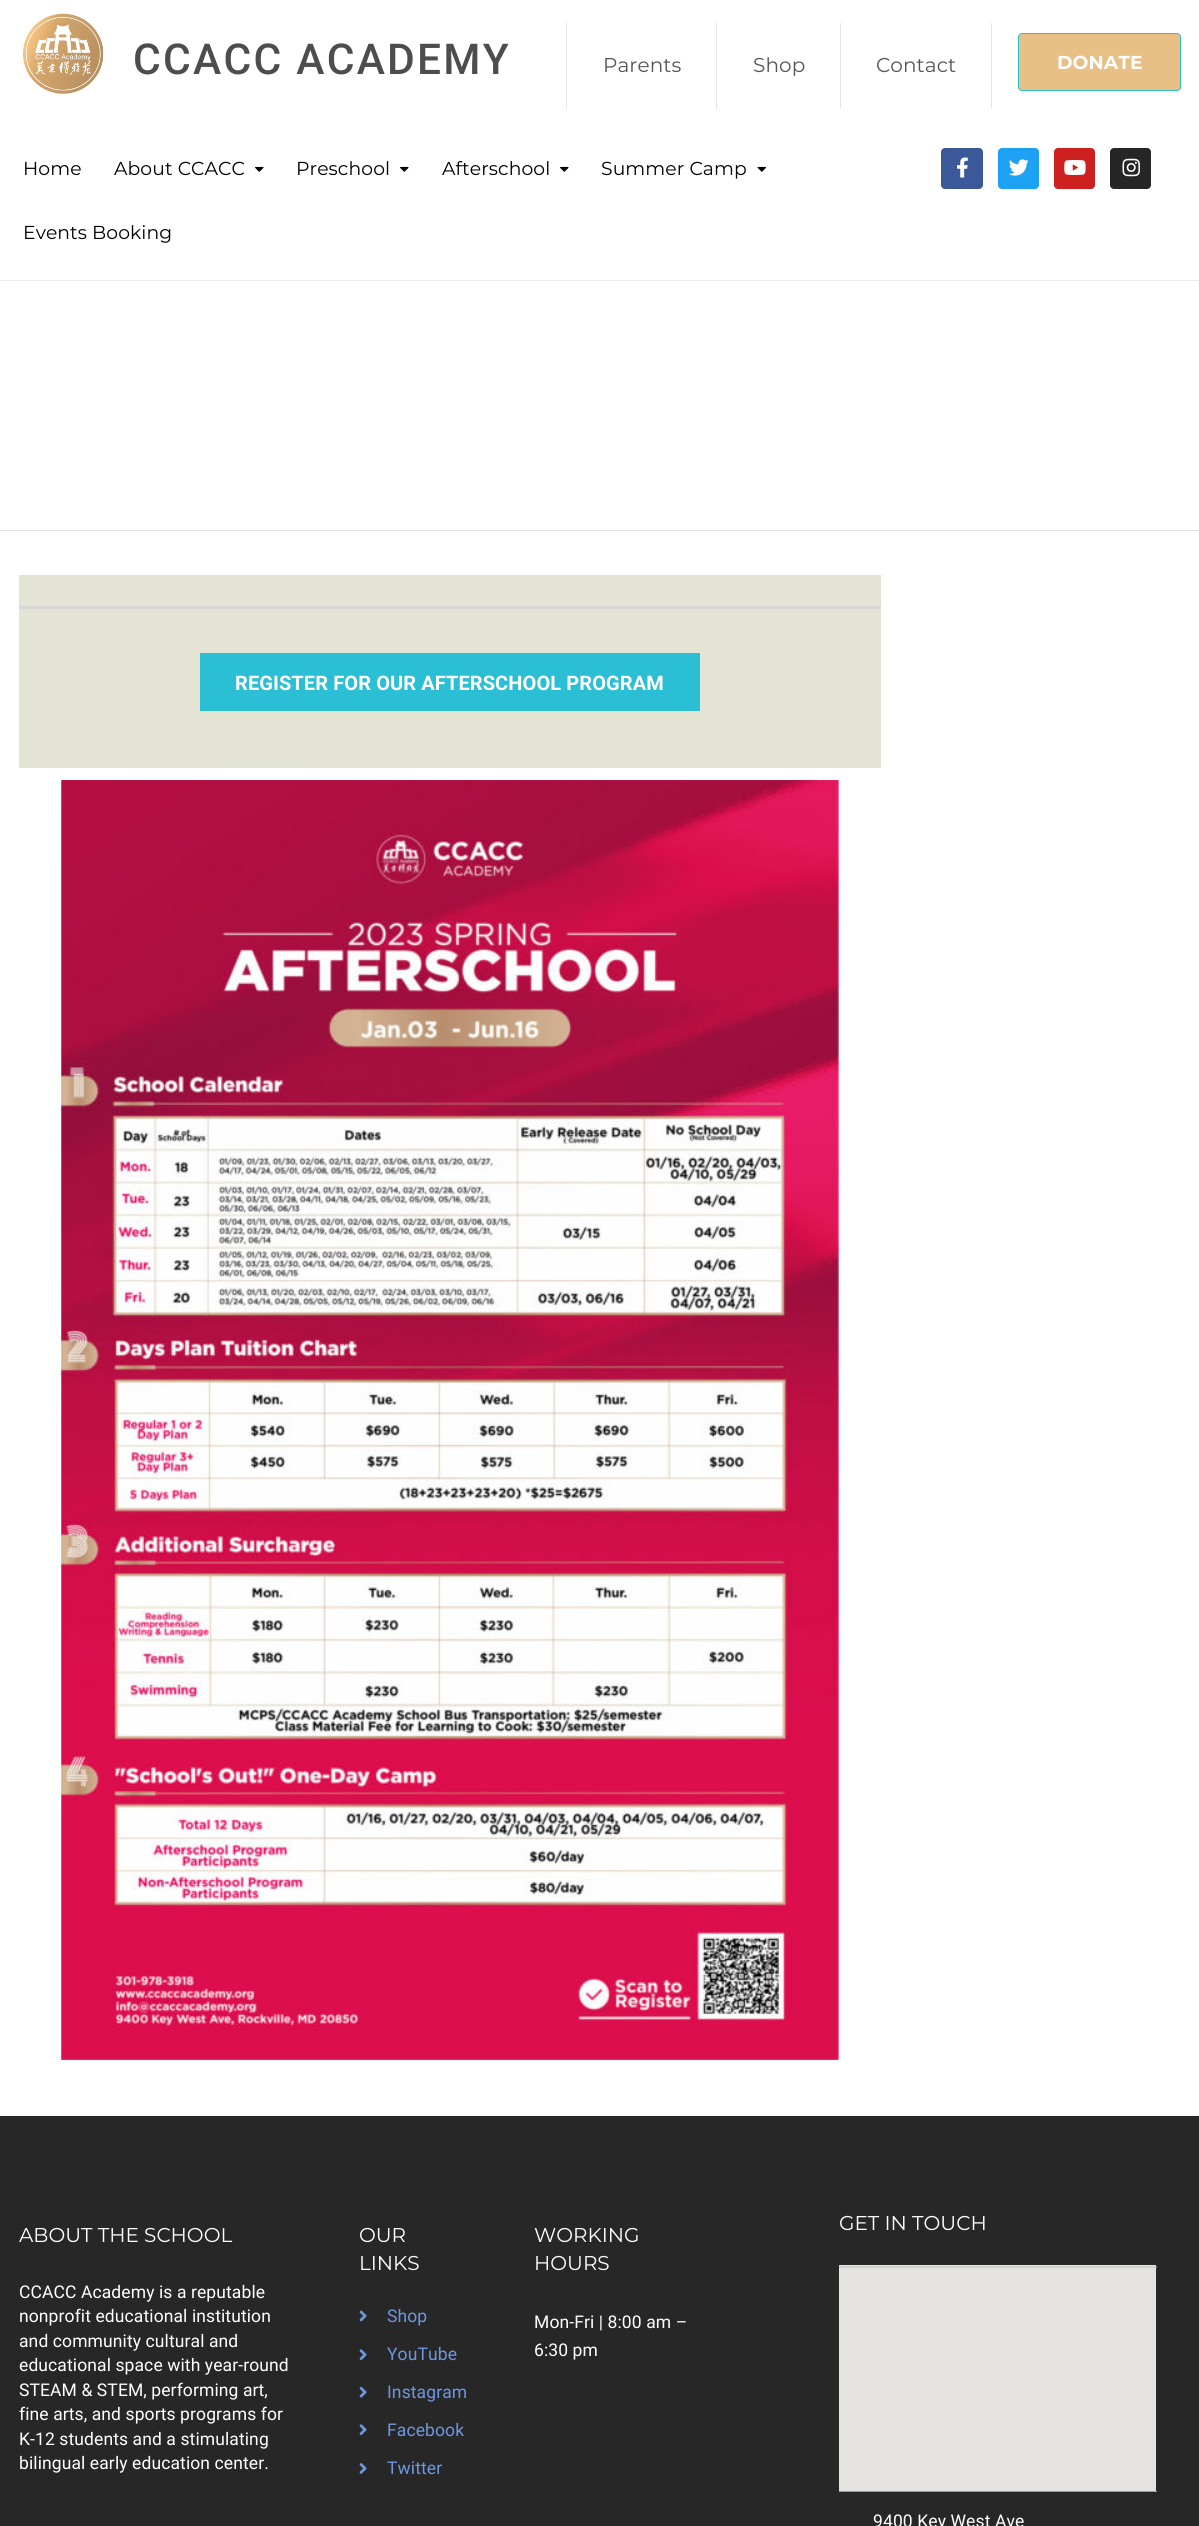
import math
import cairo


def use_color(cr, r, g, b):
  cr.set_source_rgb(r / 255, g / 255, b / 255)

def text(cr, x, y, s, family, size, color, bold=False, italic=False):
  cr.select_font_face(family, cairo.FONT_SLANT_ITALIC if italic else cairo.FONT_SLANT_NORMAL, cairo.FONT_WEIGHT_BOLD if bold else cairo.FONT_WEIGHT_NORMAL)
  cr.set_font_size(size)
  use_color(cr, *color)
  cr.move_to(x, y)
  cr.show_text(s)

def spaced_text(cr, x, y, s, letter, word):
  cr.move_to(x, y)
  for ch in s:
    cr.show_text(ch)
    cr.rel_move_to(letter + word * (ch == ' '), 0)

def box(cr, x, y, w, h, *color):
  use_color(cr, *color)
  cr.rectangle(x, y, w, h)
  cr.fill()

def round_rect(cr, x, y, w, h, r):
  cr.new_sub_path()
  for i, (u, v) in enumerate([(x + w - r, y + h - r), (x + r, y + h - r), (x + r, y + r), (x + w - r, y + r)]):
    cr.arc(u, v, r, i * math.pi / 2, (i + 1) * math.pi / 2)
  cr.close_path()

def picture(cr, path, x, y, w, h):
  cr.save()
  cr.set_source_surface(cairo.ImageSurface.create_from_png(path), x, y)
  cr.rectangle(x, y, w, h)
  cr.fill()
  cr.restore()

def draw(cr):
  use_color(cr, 255, 255, 255)
  cr.paint()
  box(cr, 0, 280, 1199, 1, 235, 235, 235)
  picture(cr, "img_01.png", 23, 13, 81, 81)
  box(cr, 716, 23, 1, 86, 229, 229, 229)
  box(cr, 566, 23, 1, 86, 229, 229, 229)
  box(cr, 840, 23, 1, 86, 229, 229, 229)
  box(cr, 991, 23, 1, 86, 229, 229, 229)
  use_color(cr, 232, 191, 132)
  round_rect(cr, 1018.5, 33.5, 162, 57, 3.5)
  cr.fill_preserve()
  use_color(cr, 42, 191, 212)
  cr.set_line_width(1)
  cr.stroke()
  picture(cr, "img_02.png", 255, 166, 9, 6)
  picture(cr, "img_02.png", 400, 166, 9, 6)
  picture(cr, "img_02.png", 560, 166, 9, 6)
  picture(cr, "img_03.png", 757, 166, 9, 6)
  use_color(cr, 59, 89, 152)
  round_rect(cr, 941, 148, 42, 41, 4)
  cr.fill()
  picture(cr, "img_04.png", 957, 157, 11, 21)
  use_color(cr, 29, 161, 242)
  round_rect(cr, 998, 148, 41, 41, 4)
  cr.fill()
  picture(cr, "img_05.png", 1008, 159, 21, 17)
  use_color(cr, 205, 32, 31)
  round_rect(cr, 1054, 148, 41, 41, 4)
  cr.fill()
  picture(cr, "img_06.png", 1064, 160, 22, 15)
  use_color(cr, 38, 38, 38)
  round_rect(cr, 1110, 148, 41, 41, 4)
  cr.fill()
  picture(cr, "img_07.png", 1122, 158, 18, 19)
  box(cr, 0, 530, 1199, 1, 225, 225, 225)
  box(cr, 19, 575, 862, 193, 228, 228, 213)
  box(cr, 19, 606, 862, 3, 215, 215, 215)
  box(cr, 200, 653, 500, 58, 42, 191, 212)
  picture(cr, "img_08.png", 61, 780, 778, 1280)
  box(cr, 0, 2116, 1199, 410, 39, 39, 39)
  picture(cr, "img_09.png", 359, 2310, 8, 12)
  picture(cr, "img_10.png", 359, 2349, 8, 12)
  picture(cr, "img_11.png", 359, 2386, 8, 12)
  picture(cr, "img_10.png", 359, 2424, 8, 12)
  picture(cr, "img_12.png", 359, 2463, 8, 11)
  picture(cr, "img_13.png", 839, 2265, 318, 227)
  box(cr, 845, 2525, 1, 1, 48, 48, 48)
  cr.select_font_face("Roboto Medium")
  cr.set_font_size(42.5)
  use_color(cr, 79, 76, 76)
  spaced_text(cr, 133, 74, "CCACC ACADEMY", 2.25, 0)
  cr.select_font_face("Montserrat")
  cr.set_font_size(20)
  use_color(cr, 85, 85, 85)
  spaced_text(cr, 603, 72, "Parents", 0.1, 0)
  spaced_text(cr, 753, 72, "Shop", 0.1, 0)
  spaced_text(cr, 876, 72, "Contact", 0.1, 0)
  cr.select_font_face("Montserrat", cairo.FONT_SLANT_NORMAL, cairo.FONT_WEIGHT_BOLD)
  cr.set_font_size(18.75)
  use_color(cr, 255, 255, 255)
  spaced_text(cr, 1057, 69, "DONATE", 0.1, 0)
  cr.select_font_face("Montserrat")
  use_color(cr, 0, 0, 0)
  spaced_text(cr, 23, 175, "Home", 0.1, 0)
  spaced_text(cr, 114, 175, "About CCACC", 0.1, 0)
  spaced_text(cr, 296, 175, "Preschool", 0.1, 0)
  spaced_text(cr, 442, 175, "Afterschool", 0.1, 0)
  spaced_text(cr, 601, 175, "Summer Camp", 0.1, 0)
  spaced_text(cr, 23, 239, "Events Booking", 0.1, 0)
  cr.select_font_face("Roboto", cairo.FONT_SLANT_NORMAL, cairo.FONT_WEIGHT_BOLD)
  cr.set_font_size(20)
  use_color(cr, 255, 255, 255)
  spaced_text(cr, 235, 690, "REGISTER FOR OUR AFTERSCHOOL PROGRAM", 0.1, 0)
  text(cr, 19, 2242, "ABOUT THE SCHOOL", "Montserrat", 20, (255, 255, 255))
  cr.select_font_face("Roboto")
  cr.set_font_size(17.5)
  spaced_text(cr, 19, 2298, "CCACC Academy is a reputable", 0.1, 0)
  spaced_text(cr, 19, 2322, "nonprofit educational institution", 0.1, 0)
  spaced_text(cr, 19, 2347, "and community cultural and", 0.1, 0)
  spaced_text(cr, 19, 2371, "educational space with year-round", 0.1, 0)
  spaced_text(cr, 19, 2396, "STEAM & STEM, performing art,", 0.1, 0)
  spaced_text(cr, 19, 2420, "fine arts, and sports programs for", 0.1, 0)
  spaced_text(cr, 19, 2445, "K-12 students and a stimulating", 0.1, 0)
  spaced_text(cr, 19, 2469, "bilingual early education center.", 0.1, 0)
  text(cr, 359, 2242, "OUR", "Montserrat", 20, (255, 255, 255))
  text(cr, 359, 2270, "LINKS", "Montserrat", 20, (255, 255, 255))
  cr.select_font_face("Roboto")
  cr.set_font_size(17.5)
  use_color(cr, 108, 152, 225)
  spaced_text(cr, 387, 2322, "Shop", 0.1, 0)
  spaced_text(cr, 387, 2360, "YouTube", 0.1, 0)
  spaced_text(cr, 387, 2398, "Instagram", 0.1, 0)
  spaced_text(cr, 387, 2436, "Facebook", 0.1, 0)
  spaced_text(cr, 387, 2474, "Twitter", 0.1, 0)
  text(cr, 534, 2242, "WORKING", "Montserrat", 20, (255, 255, 255))
  text(cr, 534, 2270, "HOURS", "Montserrat", 20, (255, 255, 255))
  cr.select_font_face("Roboto")
  cr.set_font_size(17.5)
  spaced_text(cr, 534, 2328, "Mon-Fri | 8:00 am –", 0.1, 0)
  spaced_text(cr, 534, 2356, "6:30 pm", 0.1, 0)
  text(cr, 839, 2230, "GET IN TOUCH", "Montserrat", 20, (255, 255, 255))
  cr.select_font_face("Roboto")
  cr.set_font_size(17.5)
  spaced_text(cr, 873, 2527, "9400 Key West Ave", 0.1, 0)


surface = cairo.ImageSurface(cairo.FORMAT_RGB24, 1199, 2526)
cr = cairo.Context(surface)
options = cairo.FontOptions()
options.set_hint_metrics(cairo.HINT_METRICS_OFF)
options.set_hint_style(cairo.HINT_STYLE_NONE)
cr.set_font_options(options)
cr.set_miter_limit(4)
draw(cr)
surface.write_to_png("out.png")
